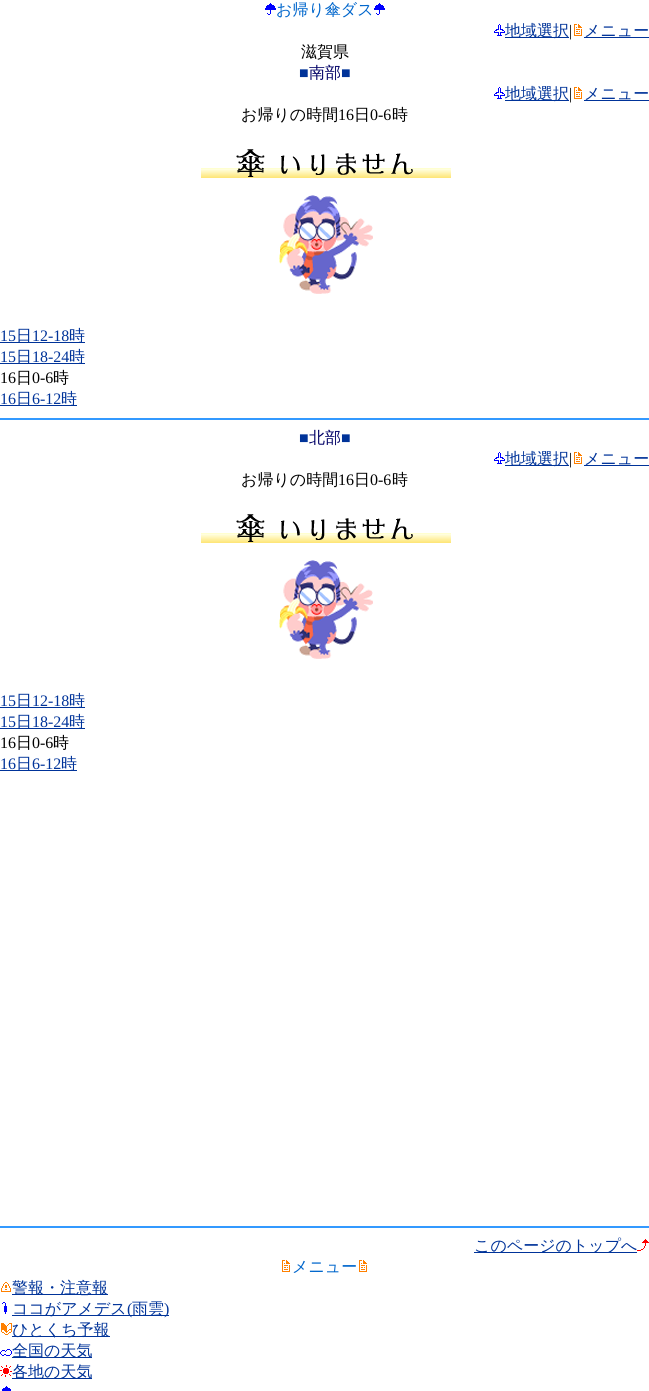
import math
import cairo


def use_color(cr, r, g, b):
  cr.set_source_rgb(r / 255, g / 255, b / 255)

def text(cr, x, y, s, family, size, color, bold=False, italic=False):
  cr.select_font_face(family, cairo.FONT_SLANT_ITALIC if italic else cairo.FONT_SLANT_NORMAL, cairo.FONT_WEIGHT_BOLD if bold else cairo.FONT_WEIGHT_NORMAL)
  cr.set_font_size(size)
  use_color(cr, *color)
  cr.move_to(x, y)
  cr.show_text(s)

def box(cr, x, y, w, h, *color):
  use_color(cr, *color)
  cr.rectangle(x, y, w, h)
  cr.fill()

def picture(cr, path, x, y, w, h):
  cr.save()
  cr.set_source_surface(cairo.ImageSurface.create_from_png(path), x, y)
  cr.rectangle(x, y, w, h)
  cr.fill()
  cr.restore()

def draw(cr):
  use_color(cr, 255, 255, 255)
  cr.paint()
  picture(cr, "img_01.png", 265, 3, 11, 12)
  picture(cr, "img_01.png", 374, 3, 11, 12)
  picture(cr, "img_02.png", 494, 24, 11, 12)
  box(cr, 505, 37, 64, 1, 0, 51, 153)
  picture(cr, "img_03.png", 574, 24, 8, 12)
  box(cr, 584, 37, 65, 1, 0, 51, 153)
  picture(cr, "img_02.png", 494, 87, 11, 12)
  box(cr, 505, 100, 64, 1, 0, 51, 153)
  picture(cr, "img_03.png", 574, 87, 8, 12)
  box(cr, 584, 100, 65, 1, 0, 51, 153)
  picture(cr, "img_04.png", 201, 149, 250, 145)
  box(cr, 0, 342, 85, 1, 0, 51, 153)
  box(cr, 0, 363, 85, 1, 0, 51, 153)
  box(cr, 0, 405, 77, 1, 0, 51, 153)
  box(cr, 0, 418, 649, 2, 51, 153, 255)
  picture(cr, "img_02.png", 494, 452, 11, 12)
  box(cr, 505, 465, 64, 1, 0, 51, 153)
  picture(cr, "img_03.png", 574, 452, 8, 12)
  box(cr, 584, 465, 65, 1, 0, 51, 153)
  picture(cr, "img_04.png", 201, 514, 250, 145)
  box(cr, 0, 707, 85, 1, 0, 51, 153)
  box(cr, 0, 728, 85, 1, 0, 51, 153)
  box(cr, 0, 770, 77, 1, 0, 51, 153)
  box(cr, 0, 1226, 649, 2, 51, 153, 255)
  box(cr, 474, 1252, 163, 1, 0, 51, 153)
  picture(cr, "img_05.png", 637, 1239, 12, 12)
  picture(cr, "img_03.png", 282, 1260, 8, 12)
  picture(cr, "img_03.png", 359, 1260, 8, 12)
  picture(cr, "img_06.png", 1, 1282, 10, 10)
  box(cr, 12, 1294, 96, 1, 0, 51, 153)
  picture(cr, "img_07.png", 2, 1302, 5, 12)
  box(cr, 12, 1315, 157, 1, 0, 51, 153)
  picture(cr, "img_08.png", 1, 1323, 11, 12)
  box(cr, 12, 1336, 98, 1, 0, 51, 153)
  picture(cr, "img_09.png", 0, 1349, 12, 7)
  box(cr, 12, 1357, 80, 1, 0, 51, 153)
  picture(cr, "img_10.png", 0, 1365, 12, 12)
  box(cr, 12, 1378, 80, 1, 0, 51, 153)
  picture(cr, "img_11.png", 2, 1386, 9, 5)
  text(cr, 276, 15, "お帰り傘ダス", "WenQuanYi Zen Hei Medium", 16, (0, 102, 204))
  text(cr, 505, 36, "地域選択", "WenQuanYi Zen Hei Medium", 16, (0, 51, 153))
  text(cr, 569, 36, "|", "Liberation Serif", 16, (0, 0, 0))
  text(cr, 584, 36, "メニュー", "WenQuanYi Zen Hei Medium", 16, (0, 51, 153))
  text(cr, 301, 57, "滋賀県", "WenQuanYi Zen Hei Medium", 16, (0, 0, 0))
  text(cr, 299, 78, "■", "Liberation Serif", 16, (0, 51, 153))
  text(cr, 309, 78, "南部", "WenQuanYi Zen Hei Medium", 16, (0, 0, 102))
  text(cr, 341, 78, "■", "Liberation Serif", 16, (0, 51, 153))
  text(cr, 505, 99, "地域選択", "WenQuanYi Zen Hei Medium", 16, (0, 51, 153))
  text(cr, 569, 99, "|", "Liberation Serif", 16, (0, 0, 0))
  text(cr, 584, 99, "メニュー", "WenQuanYi Zen Hei Medium", 16, (0, 51, 153))
  text(cr, 241, 120, "お帰りの時間", "WenQuanYi Zen Hei Medium", 16, (0, 0, 0))
  text(cr, 338, 120, "16", "Liberation Serif", 16, (0, 0, 0))
  text(cr, 354, 120, "日", "WenQuanYi Zen Hei Medium", 16, (0, 0, 0))
  text(cr, 370, 120, "0-6", "Liberation Serif", 16, (0, 0, 0))
  text(cr, 392, 120, "時", "WenQuanYi Zen Hei Medium", 16, (0, 0, 0))
  text(cr, 0, 341, "15", "Liberation Serif", 16, (0, 51, 153))
  text(cr, 16, 341, "日", "WenQuanYi Zen Hei Medium", 16, (0, 51, 153))
  text(cr, 32, 341, "12-18", "Liberation Serif", 16, (0, 51, 153))
  text(cr, 69, 341, "時", "WenQuanYi Zen Hei Medium", 16, (0, 51, 153))
  text(cr, 0, 362, "15", "Liberation Serif", 16, (0, 51, 153))
  text(cr, 16, 362, "日", "WenQuanYi Zen Hei Medium", 16, (0, 51, 153))
  text(cr, 32, 362, "18-24", "Liberation Serif", 16, (0, 51, 153))
  text(cr, 69, 362, "時", "WenQuanYi Zen Hei Medium", 16, (0, 51, 153))
  text(cr, 0, 383, "16", "Liberation Serif", 16, (0, 0, 0))
  text(cr, 16, 383, "日", "WenQuanYi Zen Hei Medium", 16, (0, 0, 0))
  text(cr, 32, 383, "0-6", "Liberation Serif", 16, (0, 0, 0))
  text(cr, 53, 383, "時", "WenQuanYi Zen Hei Medium", 16, (0, 0, 0))
  text(cr, 0, 404, "16", "Liberation Serif", 16, (0, 51, 153))
  text(cr, 16, 404, "日", "WenQuanYi Zen Hei Medium", 16, (0, 51, 153))
  text(cr, 32, 404, "6-12", "Liberation Serif", 16, (0, 51, 153))
  text(cr, 61, 404, "時", "WenQuanYi Zen Hei Medium", 16, (0, 51, 153))
  text(cr, 299, 443, "■", "Liberation Serif", 16, (0, 51, 153))
  text(cr, 309, 443, "北部", "WenQuanYi Zen Hei Medium", 16, (0, 0, 102))
  text(cr, 341, 443, "■", "Liberation Serif", 16, (0, 51, 153))
  text(cr, 505, 464, "地域選択", "WenQuanYi Zen Hei Medium", 16, (0, 51, 153))
  text(cr, 569, 464, "|", "Liberation Serif", 16, (0, 0, 0))
  text(cr, 584, 464, "メニュー", "WenQuanYi Zen Hei Medium", 16, (0, 51, 153))
  text(cr, 241, 485, "お帰りの時間", "WenQuanYi Zen Hei Medium", 16, (0, 0, 0))
  text(cr, 338, 485, "16", "Liberation Serif", 16, (0, 0, 0))
  text(cr, 354, 485, "日", "WenQuanYi Zen Hei Medium", 16, (0, 0, 0))
  text(cr, 370, 485, "0-6", "Liberation Serif", 16, (0, 0, 0))
  text(cr, 392, 485, "時", "WenQuanYi Zen Hei Medium", 16, (0, 0, 0))
  text(cr, 0, 706, "15", "Liberation Serif", 16, (0, 51, 153))
  text(cr, 16, 706, "日", "WenQuanYi Zen Hei Medium", 16, (0, 51, 153))
  text(cr, 32, 706, "12-18", "Liberation Serif", 16, (0, 51, 153))
  text(cr, 69, 706, "時", "WenQuanYi Zen Hei Medium", 16, (0, 51, 153))
  text(cr, 0, 727, "15", "Liberation Serif", 16, (0, 51, 153))
  text(cr, 16, 727, "日", "WenQuanYi Zen Hei Medium", 16, (0, 51, 153))
  text(cr, 32, 727, "18-24", "Liberation Serif", 16, (0, 51, 153))
  text(cr, 69, 727, "時", "WenQuanYi Zen Hei Medium", 16, (0, 51, 153))
  text(cr, 0, 748, "16", "Liberation Serif", 16, (0, 0, 0))
  text(cr, 16, 748, "日", "WenQuanYi Zen Hei Medium", 16, (0, 0, 0))
  text(cr, 32, 748, "0-6", "Liberation Serif", 16, (0, 0, 0))
  text(cr, 53, 748, "時", "WenQuanYi Zen Hei Medium", 16, (0, 0, 0))
  text(cr, 0, 769, "16", "Liberation Serif", 16, (0, 51, 153))
  text(cr, 16, 769, "日", "WenQuanYi Zen Hei Medium", 16, (0, 51, 153))
  text(cr, 32, 769, "6-12", "Liberation Serif", 16, (0, 51, 153))
  text(cr, 61, 769, "時", "WenQuanYi Zen Hei Medium", 16, (0, 51, 153))
  text(cr, 474, 1251, "このページのトップへ", "WenQuanYi Zen Hei Medium", 16, (0, 51, 153))
  text(cr, 292, 1272, "メニュー", "WenQuanYi Zen Hei Medium", 16, (0, 102, 204))
  text(cr, 12, 1293, "警報・注意報", "WenQuanYi Zen Hei Medium", 16, (0, 51, 153))
  text(cr, 12, 1314, "ココがアメデス", "WenQuanYi Zen Hei Medium", 16, (0, 51, 153))
  text(cr, 127, 1314, "(", "Liberation Serif", 16, (0, 51, 153))
  text(cr, 132, 1314, "雨雲", "WenQuanYi Zen Hei Medium", 16, (0, 51, 153))
  text(cr, 164, 1314, ")", "Liberation Serif", 16, (0, 51, 153))
  text(cr, 12, 1335, "ひとくち予報", "WenQuanYi Zen Hei Medium", 16, (0, 51, 153))
  text(cr, 12, 1356, "全国の天気", "WenQuanYi Zen Hei Medium", 16, (0, 51, 153))
  text(cr, 12, 1377, "各地の天気", "WenQuanYi Zen Hei Medium", 16, (0, 51, 153))


surface = cairo.ImageSurface(cairo.FORMAT_RGB24, 649, 1391)
cr = cairo.Context(surface)
options = cairo.FontOptions()
options.set_hint_metrics(cairo.HINT_METRICS_OFF)
options.set_hint_style(cairo.HINT_STYLE_NONE)
cr.set_font_options(options)
cr.set_miter_limit(4)
draw(cr)
surface.write_to_png("out.png")
